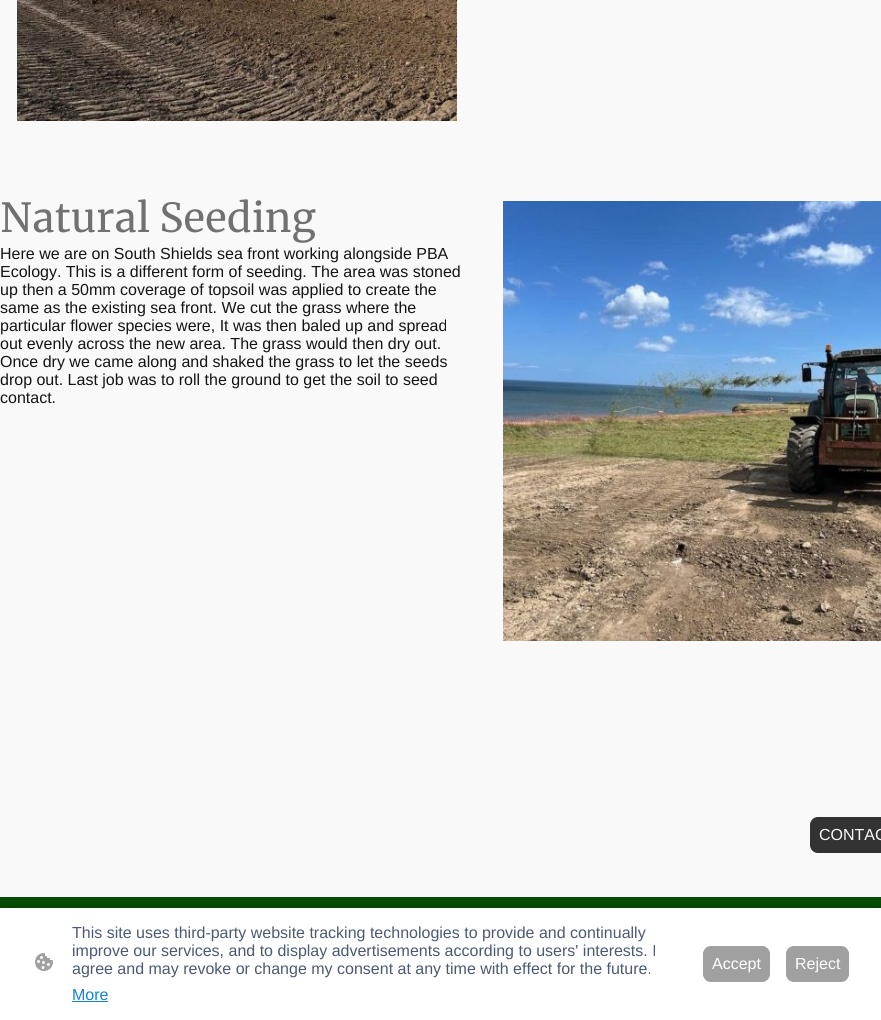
import math
import cairo


def round_path(ctx, x, y, w, h, r):
	ctx.new_sub_path()
	for i, (u, v) in enumerate([(x + w - r, y + h - r), (x + r, y + h - r), (x + r, y + r), (x + w - r, y + r)]):
		ctx.arc(u, v, r, i * math.pi / 2, (i + 1) * math.pi / 2)
	ctx.close_path()

def blur_box(ctx, x, y, w, h, r, blur, alpha):
	ctx.push_group_with_content(cairo.CONTENT_ALPHA)
	ctx.set_operator(cairo.OPERATOR_SOURCE)
	for i in range(15, -16, -2):
		e = blur * i / 6
		if min(w, h) + 2 * e > 0:
			ctx.set_source_rgba(0, 0, 0, alpha * math.erfc((i - 1) / 8.5) / 2)
			round_path(ctx, x - e, y - e, w + 2 * e, h + 2 * e, max(0, min(r + e + blur * .6, min(w, h) / 2 + e)))
			ctx.fill()
	ctx.mask(ctx.pop_group())

def paste(ctx, path, x, y, w, h):
	ctx.save()
	ctx.set_source_surface(cairo.ImageSurface.create_from_png(path), x, y)
	ctx.rectangle(x, y, w, h)
	ctx.fill()
	ctx.restore()

def draw(ctx):
	ctx.set_source_rgb(0.973, 0.973, 0.973)
	ctx.paint()
	paste(ctx, 'media/1.png', 17, 0, 440, 121)
	ctx.select_font_face('Merriweather')
	ctx.set_font_size(40)
	ctx.set_source_rgb(0.443, 0.443, 0.443)
	ctx.move_to(0, 232)
	ctx.show_text('Natural Seeding')
	paste(ctx, 'media/2.png', 503, 201, 378, 440)
	ctx.select_font_face('Liberation Sans')
	ctx.set_font_size(16)
	ctx.set_source_rgb(0.082, 0.082, 0.082)
	for x, y, s in [
		(0, 259, 'Here we are on South Shields sea front working alongside PBA'),
		(0, 277, 'Ecology. This is a different form of seeding. The area was stoned'),
		(0, 295, 'up then a 50mm coverage of topsoil was applied to create the'),
		(0, 313, 'same as the existing sea front. We cut the grass where the'),
		(0, 331, 'particular flower species were, It was then baled up and spread'),
		(0, 349, 'out evenly across the new area. The grass would then dry out.'),
		(0, 367, 'Once dry we came along and shaked the grass to let the seeds'),
		(0, 385, 'drop out. Last job was to roll the ground to get the soil to seed'),
		(0, 403, 'contact.'),
	]:
		ctx.move_to(x, y)
		ctx.show_text(s)
	ctx.set_source_rgb(0.2, 0.2, 0.2)
	round_path(ctx, 810.5, 817.5, 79, 35, 7.5)
	ctx.fill_preserve()
	ctx.set_line_width(1)
	ctx.stroke()
	ctx.set_source_rgb(0.973, 0.973, 0.973)
	ctx.move_to(819, 840)
	ctx.show_text('CONTAC')
	ctx.set_source_rgb(0.008, 0.302, 0.008)
	ctx.rectangle(0, 897, 881, 11)
	ctx.fill()
	ctx.set_source_rgb(0, 0, 0)
	blur_box(ctx, 6, 911, 869, 100, 0, 4, 0.63)
	ctx.set_source_rgb(1, 1, 1)
	ctx.rectangle(0, 908, 881, 112)
	ctx.fill()
	paste(ctx, 'media/3.png', 35, 953, 18, 18)
	ctx.set_source_rgb(0.29, 0.353, 0.451)
	for x, y, s in [
		(72, 938, 'This site uses third-party website tracking technologies to provide and continually'),
		(72, 956, 'improve our services, and to display advertisements according to users\' interests. I'),
		(72, 974, 'agree and may revoke or change my consent at any time with effect for the future.'),
	]:
		ctx.move_to(x, y)
		ctx.show_text(s)
	ctx.set_source_rgb(0.067, 0.514, 0.82)
	ctx.move_to(72, 1000)
	ctx.show_text('More')
	ctx.rectangle(72, 1001, 36, 1)
	ctx.fill()
	ctx.set_source_rgb(0.627, 0.627, 0.627)
	round_path(ctx, 703.5, 946.5, 66, 35, 7.5)
	ctx.fill_preserve()
	ctx.stroke()
	ctx.set_source_rgb(1, 1, 1)
	ctx.move_to(712, 969)
	ctx.show_text('Accept')
	ctx.set_source_rgb(0.627, 0.627, 0.627)
	round_path(ctx, 786.5, 946.5, 62, 35, 7.5)
	ctx.fill_preserve()
	ctx.stroke()
	ctx.set_source_rgb(1, 1, 1)
	ctx.move_to(795, 969)
	ctx.show_text('Reject')


surface = cairo.ImageSurface(cairo.FORMAT_RGB24, 881, 1020)
ctx = cairo.Context(surface)
options = cairo.FontOptions()
options.set_hint_metrics(cairo.HINT_METRICS_OFF)
options.set_hint_style(cairo.HINT_STYLE_NONE)
ctx.set_font_options(options)
ctx.set_miter_limit(4)
draw(ctx)
surface.write_to_png('image.png')
